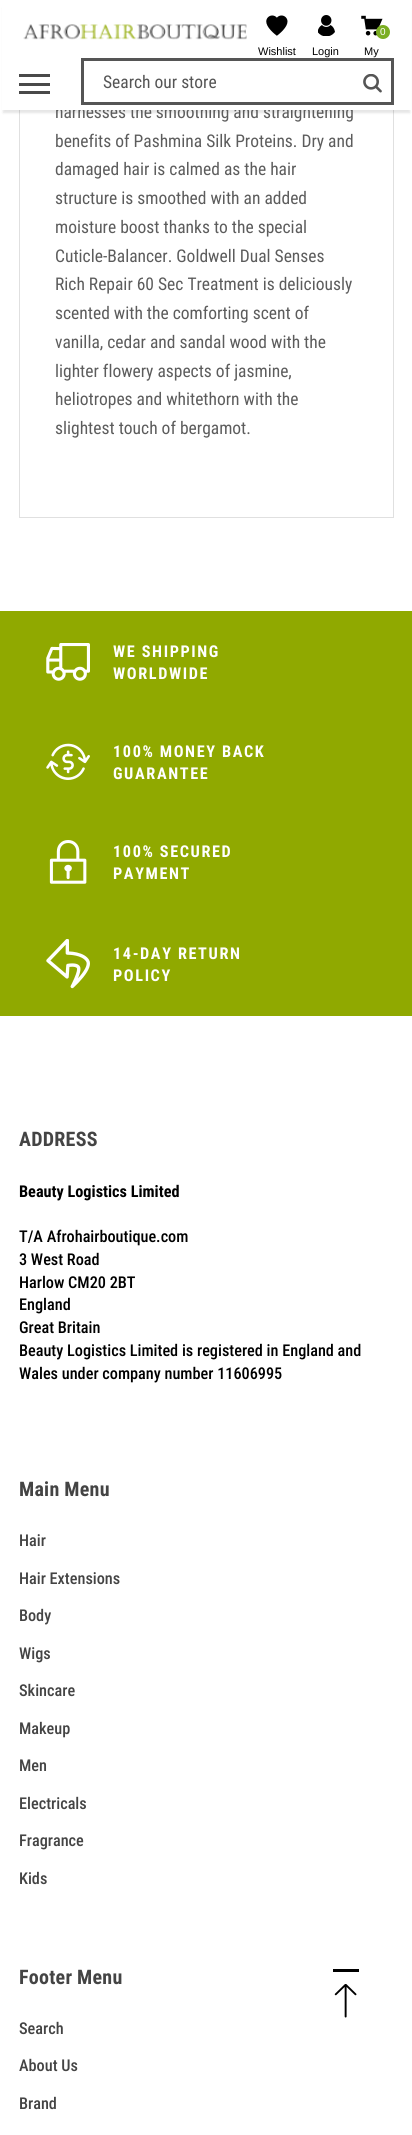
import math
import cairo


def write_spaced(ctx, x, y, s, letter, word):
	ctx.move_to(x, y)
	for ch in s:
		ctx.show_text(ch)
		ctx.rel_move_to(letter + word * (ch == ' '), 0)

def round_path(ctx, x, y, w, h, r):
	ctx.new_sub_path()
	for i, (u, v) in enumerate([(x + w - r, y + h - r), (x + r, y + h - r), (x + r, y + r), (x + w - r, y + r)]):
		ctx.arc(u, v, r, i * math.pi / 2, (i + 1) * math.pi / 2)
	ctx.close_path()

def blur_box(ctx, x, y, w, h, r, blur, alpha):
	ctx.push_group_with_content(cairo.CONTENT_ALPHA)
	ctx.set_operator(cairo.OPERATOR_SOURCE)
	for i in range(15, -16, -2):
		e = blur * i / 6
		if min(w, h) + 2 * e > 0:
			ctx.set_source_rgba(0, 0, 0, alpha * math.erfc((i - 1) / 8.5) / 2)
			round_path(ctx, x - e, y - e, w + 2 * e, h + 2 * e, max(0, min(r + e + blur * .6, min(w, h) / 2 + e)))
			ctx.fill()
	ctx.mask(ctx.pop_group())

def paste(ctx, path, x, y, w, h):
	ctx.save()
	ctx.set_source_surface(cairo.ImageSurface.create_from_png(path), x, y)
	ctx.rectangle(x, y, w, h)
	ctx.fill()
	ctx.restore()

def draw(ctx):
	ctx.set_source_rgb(1, 1, 1)
	ctx.paint()
	ctx.rectangle(19.5, -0.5, 374, 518)
	ctx.set_source_rgb(0.878, 0.878, 0.878)
	ctx.set_line_width(1)
	ctx.stroke()
	ctx.set_source_rgb(0, 0, 0)
	blur_box(ctx, 3, 8, 407, 105, 0, 1, 0.1)
	ctx.select_font_face('Roboto Condensed')
	ctx.set_font_size(17.5)
	ctx.set_source_rgb(0.361, 0.361, 0.361)
	ctx.move_to(55, 118)
	ctx.show_text('harnesses the smoothing and straightening')
	ctx.set_source_rgb(1, 1, 1)
	ctx.rectangle(2, 0, 409, 110)
	ctx.fill()
	paste(ctx, 'media/1.png', 23, 24, 224, 16)
	paste(ctx, 'media/2.png', 266, 15, 22, 21)
	ctx.select_font_face('Liberation Sans')
	ctx.set_font_size(11)
	ctx.set_source_rgb(0, 0, 0)
	ctx.move_to(258, 55)
	ctx.show_text('Wishlist')
	paste(ctx, 'media/3.png', 318, 15, 17, 21)
	ctx.move_to(312, 55)
	ctx.show_text('Login')
	paste(ctx, 'media/4.png', 361, 15, 22, 21)
	ctx.set_source_rgb(0.482, 0.682, 0.137)
	ctx.arc(383, 32, 7, 0, 2 * math.pi)
	ctx.fill()
	ctx.set_font_size(10)
	ctx.set_source_rgb(1, 1, 1)
	ctx.move_to(380, 35)
	ctx.show_text('0')
	ctx.set_font_size(11)
	ctx.set_source_rgb(0, 0, 0)
	ctx.move_to(364, 55)
	ctx.show_text('My')
	ctx.set_source_rgb(0.286, 0.286, 0.286)
	ctx.rectangle(19, 74, 31, 3)
	ctx.rectangle(19, 83, 31, 3)
	ctx.rectangle(19, 91, 31, 3)
	ctx.fill()
	ctx.rectangle(82.5, 59.5, 310, 44)
	ctx.set_source_rgb(0.333, 0.333, 0.333)
	ctx.set_line_width(3)
	ctx.stroke()
	ctx.select_font_face('Roboto Condensed')
	ctx.set_font_size(17.5)
	ctx.move_to(103, 88)
	ctx.show_text('Search our store')
	paste(ctx, 'media/5.png', 363, 74, 19, 19)
	ctx.set_source_rgb(0.361, 0.361, 0.361)
	for x, y, s in [
		(55, 147, 'benefits of Pashmina Silk Proteins. Dry and'),
		(55, 175, 'damaged hair is calmed as the hair'),
		(55, 204, 'structure is smoothed with an added'),
		(55, 233, 'moisture boost thanks to the special'),
		(55, 262, 'Cuticle-Balancer. Goldwell Dual Senses'),
		(55, 290, 'Rich Repair 60 Sec Treatment is deliciously'),
		(55, 319, 'scented with the comforting scent of'),
		(55, 348, 'vanilla, cedar and sandal wood with the'),
		(55, 377, 'lighter flowery aspects of jasmine,'),
		(55, 405, 'heliotropes and whitethorn with the'),
		(55, 434, 'slightest touch of bergamot.'),
	]:
		ctx.move_to(x, y)
		ctx.show_text(s)
	ctx.set_source_rgb(0.565, 0.663, 0)
	ctx.rectangle(0, 611, 412, 405)
	ctx.fill()
	paste(ctx, 'media/6.png', 46, 643, 44, 38)
	ctx.select_font_face('Roboto Condensed', cairo.FONT_SLANT_NORMAL, cairo.FONT_WEIGHT_BOLD)
	ctx.set_font_size(16.25)
	ctx.set_source_rgb(1, 1, 1)
	write_spaced(ctx, 113, 657, 'WE SHIPPING', 1.6, 0)
	write_spaced(ctx, 113, 679, 'WORLDWIDE', 1.6, 0)
	paste(ctx, 'media/7.png', 46, 743, 44, 37)
	write_spaced(ctx, 113, 757, '100% MONEY BACK', 1.6, 0)
	write_spaced(ctx, 113, 779, 'GUARANTEE', 1.6, 0)
	paste(ctx, 'media/8.png', 49, 840, 38, 44)
	write_spaced(ctx, 113, 857, '100% SECURED', 1.6, 0)
	write_spaced(ctx, 113, 879, 'PAYMENT', 1.6, 0)
	paste(ctx, 'media/9.png', 46, 939, 44, 50)
	write_spaced(ctx, 113, 959, '14-DAY RETURN', 1.6, 0)
	write_spaced(ctx, 113, 981, 'POLICY', 1.6, 0)
	ctx.set_font_size(20)
	ctx.set_source_rgb(0.267, 0.267, 0.267)
	write_spaced(ctx, 19, 1146, 'ADDRESS', 0.25, 0)
	ctx.set_font_size(16.25)
	ctx.set_source_rgb(0, 0, 0)
	ctx.move_to(19, 1197)
	ctx.show_text('Beauty Logistics Limited')
	ctx.select_font_face('Roboto Condensed Medium')
	for x, y, s in [
		(19, 1242, 'T/A Afrohairboutique.com'),
		(19, 1265, '3 West Road'),
		(19, 1288, 'Harlow CM20 2BT'),
		(19, 1310, 'England'),
		(19, 1333, 'Great Britain'),
		(19, 1356, 'Beauty Logistics Limited is registered in England and'),
		(19, 1379, 'Wales under company number 11606995'),
	]:
		ctx.move_to(x, y)
		ctx.show_text(s)
	ctx.select_font_face('Roboto Condensed', cairo.FONT_SLANT_NORMAL, cairo.FONT_WEIGHT_BOLD)
	ctx.set_font_size(20)
	ctx.set_source_rgb(0.267, 0.267, 0.267)
	write_spaced(ctx, 19, 1496, 'Main Menu', 0.25, 0)
	ctx.select_font_face('Roboto Condensed Medium')
	ctx.set_font_size(16.25)
	for x, y, s in [
		(19, 1546, 'Hair'),
		(19, 1584, 'Hair Extensions'),
		(19, 1621, 'Body'),
		(19, 1659, 'Wigs'),
		(19, 1696, 'Skincare'),
		(19, 1734, 'Makeup'),
		(19, 1771, 'Men'),
		(19, 1809, 'Electricals'),
		(19, 1846, 'Fragrance'),
		(19, 1884, 'Kids'),
	]:
		ctx.move_to(x, y)
		ctx.show_text(s)
	ctx.select_font_face('Roboto Condensed', cairo.FONT_SLANT_NORMAL, cairo.FONT_WEIGHT_BOLD)
	ctx.set_font_size(20)
	write_spaced(ctx, 19, 1984, 'Footer Menu', 0.25, 0)
	ctx.select_font_face('Roboto Condensed Medium')
	ctx.set_font_size(16.25)
	for x, y, s in [
		(19, 2034, 'Search'),
		(19, 2071, 'About Us'),
		(19, 2109, 'Brand'),
	]:
		ctx.move_to(x, y)
		ctx.show_text(s)
	ctx.set_source_rgb(0, 0, 0)
	ctx.rectangle(333, 1969, 26, 3)
	ctx.fill()
	paste(ctx, 'media/10.png', 334, 1984, 23, 34)


surface = cairo.ImageSurface(cairo.FORMAT_RGB24, 412, 2135)
ctx = cairo.Context(surface)
options = cairo.FontOptions()
options.set_hint_metrics(cairo.HINT_METRICS_OFF)
options.set_hint_style(cairo.HINT_STYLE_NONE)
ctx.set_font_options(options)
ctx.set_miter_limit(4)
draw(ctx)
surface.write_to_png('image.png')
